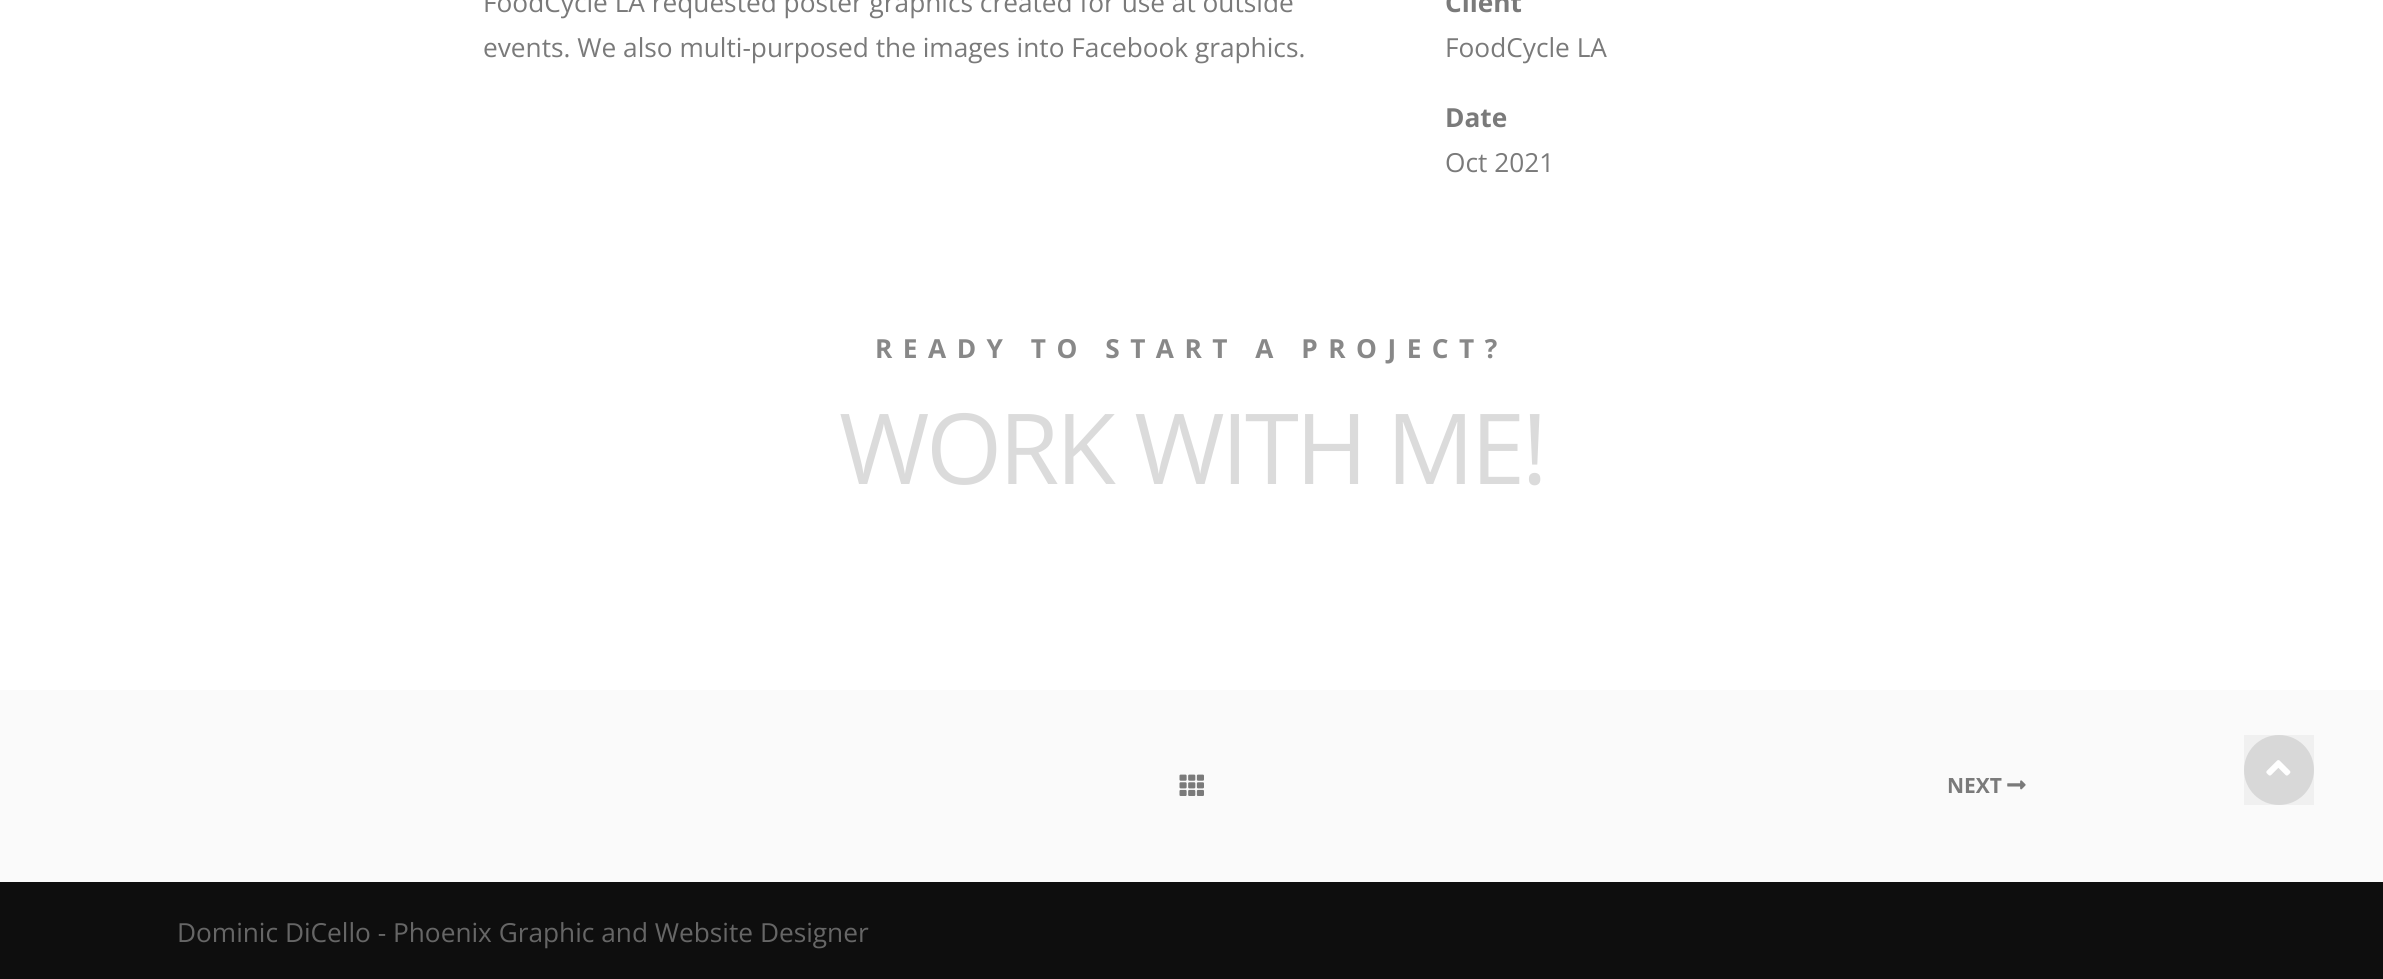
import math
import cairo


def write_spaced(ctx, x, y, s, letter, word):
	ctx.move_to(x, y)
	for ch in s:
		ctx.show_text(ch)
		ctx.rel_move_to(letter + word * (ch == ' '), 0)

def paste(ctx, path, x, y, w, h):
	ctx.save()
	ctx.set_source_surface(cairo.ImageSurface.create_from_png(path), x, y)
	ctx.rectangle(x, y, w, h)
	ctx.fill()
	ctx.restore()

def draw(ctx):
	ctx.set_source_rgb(1, 1, 1)
	ctx.paint()
	ctx.select_font_face('Open Sans')
	ctx.set_font_size(26.25)
	ctx.set_source_rgb(0.478, 0.478, 0.478)
	ctx.move_to(483, 12)
	ctx.show_text('FoodCycle LA requested poster graphics created for use at outside')
	ctx.move_to(483, 57)
	ctx.show_text('events. We also multi-purposed the images into Facebook graphics.')
	ctx.select_font_face('Open Sans', cairo.FONT_SLANT_NORMAL, cairo.FONT_WEIGHT_BOLD)
	ctx.move_to(1445, 12)
	ctx.show_text('Client')
	ctx.select_font_face('Open Sans')
	ctx.move_to(1445, 57)
	ctx.show_text('FoodCycle LA')
	ctx.select_font_face('Open Sans', cairo.FONT_SLANT_NORMAL, cairo.FONT_WEIGHT_BOLD)
	ctx.move_to(1445, 127)
	ctx.show_text('Date')
	ctx.select_font_face('Open Sans')
	ctx.move_to(1445, 172)
	ctx.show_text('Oct 2021')
	ctx.select_font_face('Open Sans', cairo.FONT_SLANT_NORMAL, cairo.FONT_WEIGHT_BOLD)
	ctx.set_source_rgb(0.533, 0.533, 0.533)
	write_spaced(ctx, 875, 358, 'READY TO START A PROJECT?', 10.5, 0)
	ctx.select_font_face('Open Sans')
	ctx.set_font_size(98)
	ctx.set_source_rgb(0.859, 0.859, 0.859)
	write_spaced(ctx, 839, 484, 'WORK WITH ME!', -3.5, 0)
	ctx.set_source_rgb(0.98, 0.98, 0.98)
	ctx.rectangle(0, 690, 2383, 192)
	ctx.fill()
	paste(ctx, 'media/1.png', 1179, 774, 25, 22)
	ctx.select_font_face('Open Sans', cairo.FONT_SLANT_NORMAL, cairo.FONT_WEIGHT_BOLD)
	ctx.set_font_size(21)
	ctx.set_source_rgb(0.478, 0.478, 0.478)
	ctx.move_to(1947, 793)
	ctx.show_text('NEXT')
	paste(ctx, 'media/2.png', 2007, 780, 19, 10)
	ctx.set_source_rgb(0.882, 0.882, 0.882)
	ctx.arc(2279, 770, 35, 0, 2 * math.pi)
	ctx.fill()
	ctx.set_source_rgba(0, 0, 0, 0.04)
	ctx.rectangle(2244, 735, 70, 70)
	ctx.fill()
	paste(ctx, 'media/3.png', 2266, 760, 25, 16)
	ctx.set_source_rgb(0.055, 0.055, 0.055)
	ctx.rectangle(0, 882, 2383, 97)
	ctx.fill()
	ctx.select_font_face('Open Sans')
	ctx.set_font_size(26.25)
	ctx.set_source_rgb(0.4, 0.4, 0.4)
	ctx.move_to(177, 942)
	ctx.show_text('Dominic DiCello - Phoenix Graphic and Website Designer')


surface = cairo.ImageSurface(cairo.FORMAT_RGB24, 2383, 979)
ctx = cairo.Context(surface)
options = cairo.FontOptions()
options.set_hint_metrics(cairo.HINT_METRICS_OFF)
options.set_hint_style(cairo.HINT_STYLE_NONE)
ctx.set_font_options(options)
ctx.set_miter_limit(4)
draw(ctx)
surface.write_to_png('image.png')
